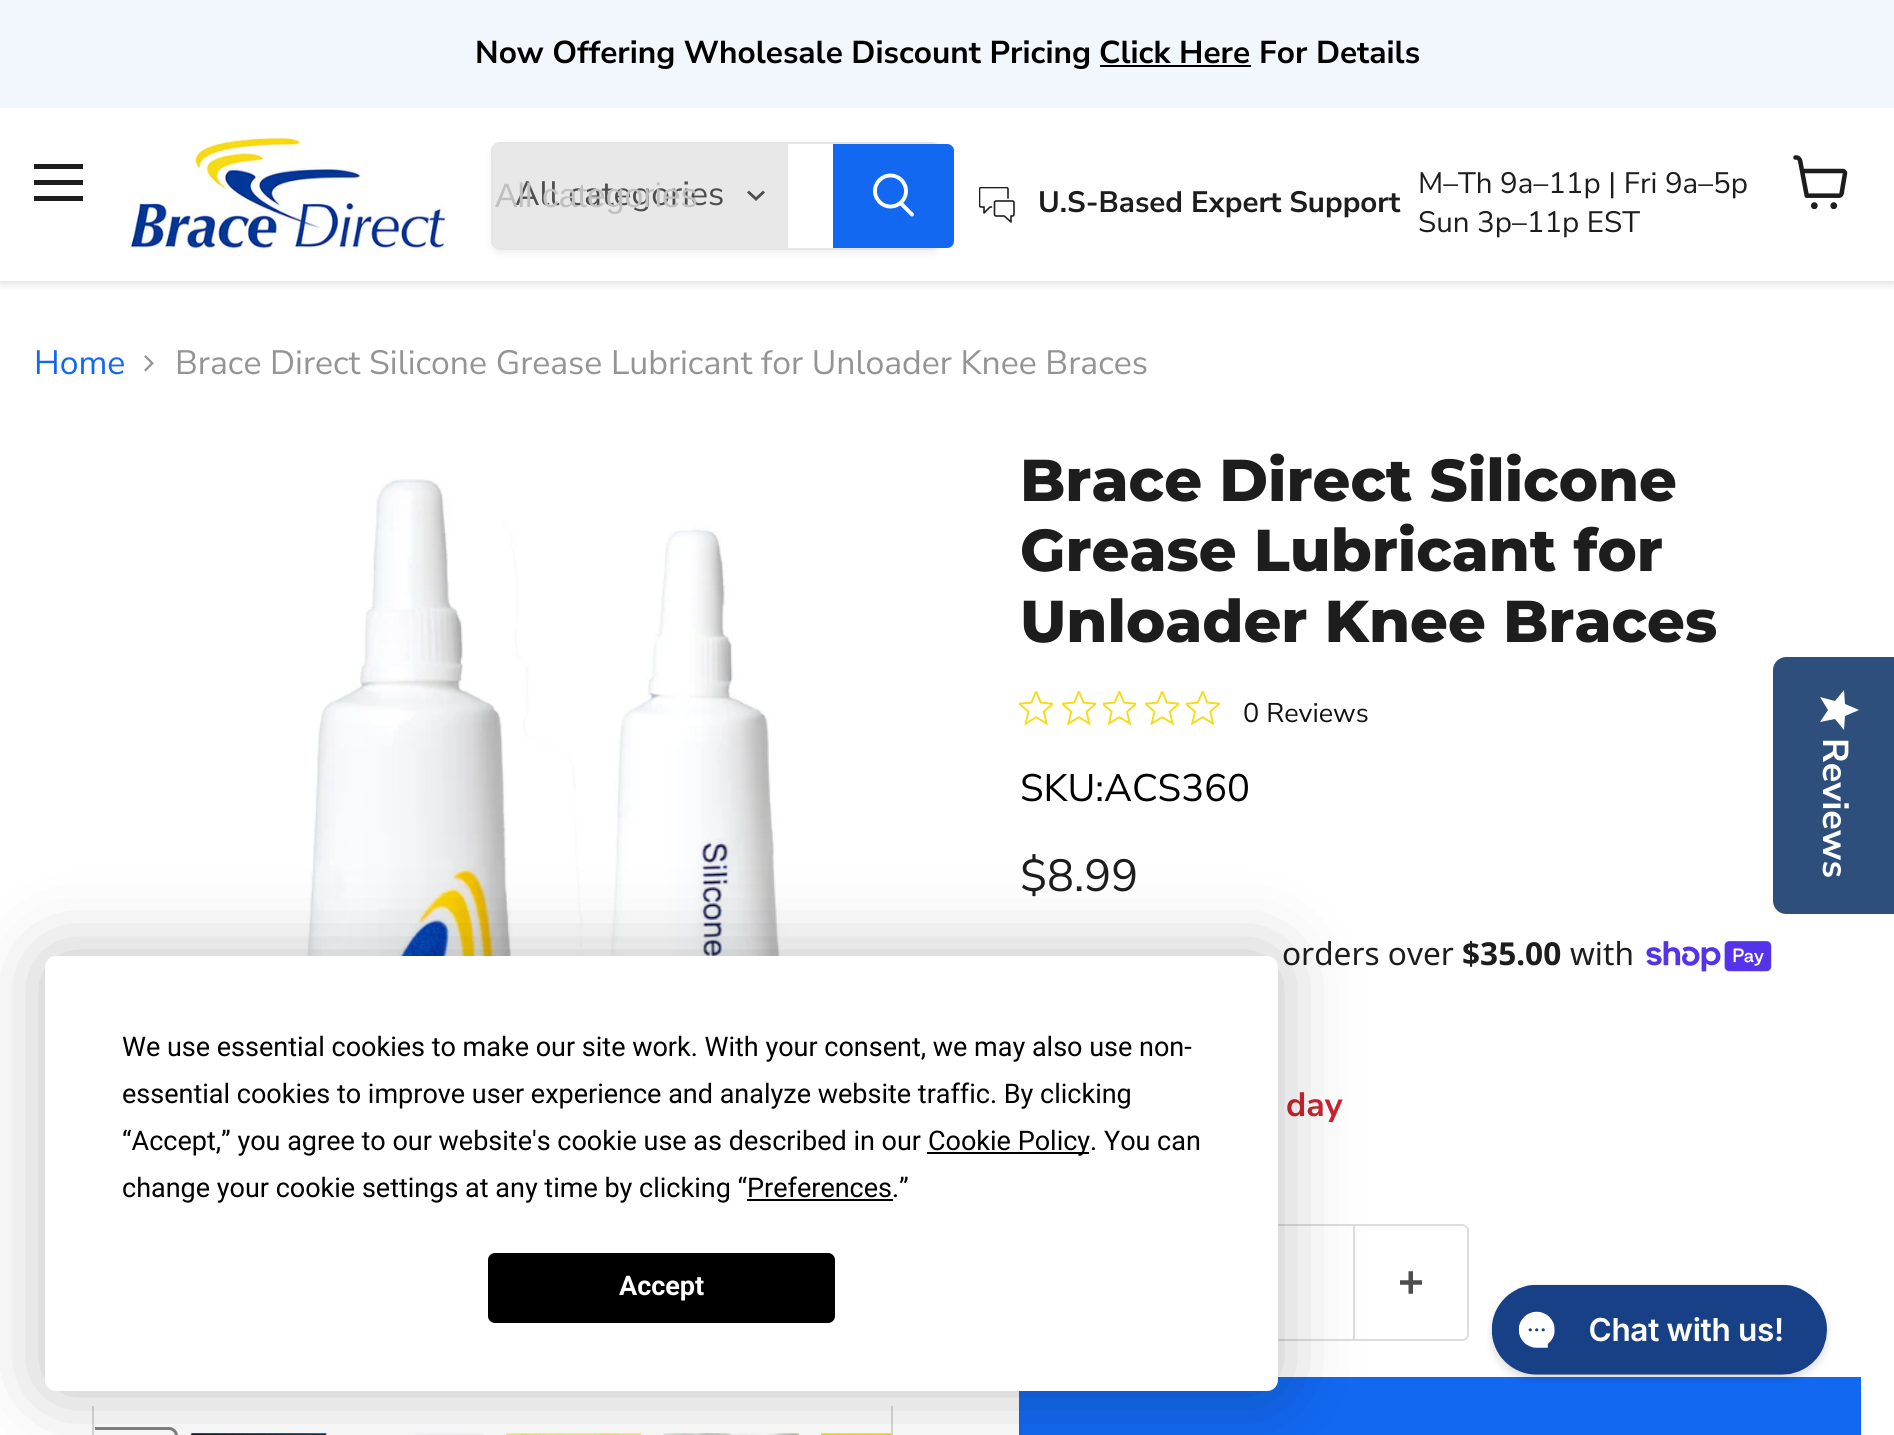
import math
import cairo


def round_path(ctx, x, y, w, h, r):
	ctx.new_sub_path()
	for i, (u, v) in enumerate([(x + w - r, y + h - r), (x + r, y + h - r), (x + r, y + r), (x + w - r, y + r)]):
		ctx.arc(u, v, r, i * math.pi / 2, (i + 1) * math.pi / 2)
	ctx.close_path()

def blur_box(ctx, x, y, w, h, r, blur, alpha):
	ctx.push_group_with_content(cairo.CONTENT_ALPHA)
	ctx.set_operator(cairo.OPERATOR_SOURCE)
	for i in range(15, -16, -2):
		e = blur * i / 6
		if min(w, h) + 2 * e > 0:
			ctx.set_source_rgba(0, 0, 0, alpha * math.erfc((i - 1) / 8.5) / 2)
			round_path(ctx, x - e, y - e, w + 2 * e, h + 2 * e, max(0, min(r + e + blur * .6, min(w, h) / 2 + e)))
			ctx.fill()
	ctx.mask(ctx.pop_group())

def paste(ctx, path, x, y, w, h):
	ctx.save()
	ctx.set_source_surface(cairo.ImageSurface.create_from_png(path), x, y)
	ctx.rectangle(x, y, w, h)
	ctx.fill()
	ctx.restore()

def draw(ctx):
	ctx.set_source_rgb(1, 1, 1)
	ctx.paint()
	ctx.save()
	ctx.rectangle(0, 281, 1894, 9)
	ctx.clip()
	ctx.set_source_rgb(0.502, 0.502, 0.502)
	blur_box(ctx, 0, 110, 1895, 174, 0, 4.5, 0.25)
	ctx.restore()
	ctx.set_source_rgb(0.949, 0.965, 0.996)
	ctx.rectangle(0, 0, 1894, 108)
	ctx.fill()
	ctx.select_font_face('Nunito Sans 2 ExtraLight')
	ctx.set_font_size(31.6)
	ctx.set_source_rgb(0, 0, 0)
	ctx.move_to(475, 63)
	ctx.show_text('Now Offering Wholesale Discount Pricing')
	ctx.move_to(1099, 63)
	ctx.show_text('Click Here')
	ctx.rectangle(1100, 65, 151, 2)
	ctx.fill()
	ctx.move_to(1259, 63)
	ctx.show_text('For Details')
	ctx.set_source_rgb(0.114, 0.114, 0.114)
	ctx.rectangle(34, 164, 49, 5)
	ctx.rectangle(34, 180, 49, 5)
	ctx.rectangle(34, 196, 49, 5)
	ctx.fill()
	paste(ctx, 'media/1.png', 130, 136, 317, 116)
	ctx.save()
	ctx.set_fill_rule(cairo.FILL_RULE_EVEN_ODD)
	ctx.new_path()
	ctx.move_to(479, 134)
	ctx.line_to(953, 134)
	ctx.line_to(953, 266)
	ctx.line_to(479, 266)
	ctx.close_path()
	ctx.move_to(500, 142)
	ctx.line_to(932, 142)
	ctx.curve_to(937, 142, 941, 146, 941, 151)
	ctx.line_to(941, 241)
	ctx.curve_to(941, 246, 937, 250, 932, 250)
	ctx.line_to(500, 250)
	ctx.curve_to(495, 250, 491, 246, 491, 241)
	ctx.line_to(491, 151)
	ctx.curve_to(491, 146, 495, 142, 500, 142)
	ctx.close_path()
	ctx.clip()
	ctx.set_source_rgb(0.502, 0.502, 0.502)
	blur_box(ctx, 491, 146, 450, 108, 9, 3.5, 0.11)
	ctx.restore()
	round_path(ctx, 492, 143, 448, 106, 8)
	ctx.set_source_rgba(0.502, 0.502, 0.502, 0.2)
	ctx.stroke()
	ctx.set_source_rgb(0.91, 0.91, 0.91)
	ctx.new_path()
	ctx.move_to(500, 144)
	ctx.line_to(788, 144)
	ctx.line_to(788, 248)
	ctx.line_to(500, 248)
	ctx.curve_to(496, 248, 493, 245, 493, 241)
	ctx.line_to(493, 151)
	ctx.curve_to(493, 147, 496, 144, 500, 144)
	ctx.close_path()
	ctx.fill()
	ctx.select_font_face('Nunito Sans ExtraLight')
	ctx.set_font_size(33.75)
	ctx.set_source_rgb(0.302, 0.302, 0.302)
	ctx.move_to(515, 205)
	ctx.show_text('All categories')
	ctx.select_font_face('Liberation Sans')
	ctx.set_source_rgb(0.753, 0.753, 0.753)
	ctx.move_to(495, 207)
	ctx.show_text('All categories')
	ctx.new_path()
	ctx.move_to(756, 199)
	ctx.line_to(763, 192.5)
	ctx.move_to(756, 199)
	ctx.line_to(749, 192.5)
	ctx.set_source_rgb(0.302, 0.302, 0.302)
	ctx.set_line_width(2.8)
	ctx.set_line_cap(cairo.LINE_CAP_SQUARE)
	ctx.stroke()
	ctx.set_source_rgb(0.071, 0.408, 0.945)
	ctx.new_path()
	ctx.move_to(834, 145)
	ctx.line_to(947, 145)
	ctx.curve_to(950.5, 145, 953, 147.5, 953, 151)
	ctx.line_to(953, 241)
	ctx.curve_to(953, 244.5, 950.5, 247, 947, 247)
	ctx.line_to(834, 247)
	ctx.close_path()
	ctx.fill_preserve()
	ctx.set_line_width(2)
	ctx.set_line_cap(cairo.LINE_CAP_BUTT)
	ctx.stroke()
	ctx.new_path()
	ctx.move_to(912, 214.5)
	ctx.line_to(901, 203.5)
	ctx.set_source_rgb(1, 1, 1)
	ctx.set_line_width(3.9)
	ctx.set_line_cap(cairo.LINE_CAP_ROUND)
	ctx.stroke()
	ctx.arc(890.5, 191, 15.5, 0, 2 * math.pi)
	ctx.set_line_cap(cairo.LINE_CAP_BUTT)
	ctx.stroke()
	paste(ctx, 'media/2.png', 979, 187, 36, 36)
	ctx.select_font_face('Nunito Sans 2 ExtraLight')
	ctx.set_font_size(29.5)
	ctx.set_source_rgb(0.114, 0.114, 0.114)
	ctx.move_to(1038, 212)
	ctx.show_text('U.S-Based Expert Support')
	ctx.select_font_face('Nunito Sans ExtraLight')
	ctx.move_to(1418, 193)
	ctx.show_text('M–Th 9a–11p | Fri 9a–5p')
	ctx.move_to(1418, 232)
	ctx.show_text('Sun 3p–11p EST')
	paste(ctx, 'media/3.png', 1793, 155, 55, 54)
	ctx.set_font_size(33.75)
	ctx.set_source_rgb(0.071, 0.408, 0.945)
	ctx.move_to(34, 374)
	ctx.show_text('Home')
	paste(ctx, 'media/4.png', 144, 355, 10, 17)
	ctx.set_source_rgb(0.58, 0.58, 0.58)
	ctx.move_to(175, 374)
	ctx.show_text('Brace Direct Silicone Grease Lubricant for Unloader Knee Braces')
	paste(ctx, 'media/5.png', 263, 478, 550, 478)
	round_path(ctx, 28.5, 1428.5, 148, 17, 7.5)
	ctx.set_source_rgb(0.506, 0.506, 0.506)
	ctx.set_line_width(3)
	ctx.stroke()
	ctx.set_source_rgb(1, 1, 1)
	ctx.rectangle(27, 1427, 68, 8)
	ctx.fill()
	ctx.set_source_rgb(0.851, 0.851, 0.851)
	ctx.rectangle(92, 1406, 2, 29)
	ctx.rectangle(891, 1406, 2, 29)
	ctx.fill()
	paste(ctx, 'media/6.png', 191, 1433, 136, 2)
	paste(ctx, 'media/7.png', 413, 1433, 71, 2)
	paste(ctx, 'media/8.png', 506, 1433, 136, 2)
	paste(ctx, 'media/9.png', 663, 1433, 136, 2)
	paste(ctx, 'media/10.png', 821, 1433, 70, 2)
	ctx.select_font_face('Montserrat ExtraBold')
	ctx.set_font_size(59)
	ctx.set_source_rgb(0.114, 0.114, 0.114)
	for x, y, s in [
		(1020, 501, 'Brace Direct Silicone'),
		(1020, 571, 'Grease Lubricant for'),
		(1020, 642, 'Unloader Knee Braces'),
	]:
		ctx.move_to(x, y)
		ctx.show_text(s)
	paste(ctx, 'media/11.png', 1019, 691, 34, 34)
	paste(ctx, 'media/12.png', 1062, 691, 34, 34)
	paste(ctx, 'media/13.png', 1103, 691, 33, 34)
	paste(ctx, 'media/11.png', 1145, 691, 34, 34)
	paste(ctx, 'media/14.png', 1186, 691, 34, 34)
	ctx.select_font_face('Nunito Sans ExtraLight')
	ctx.set_font_size(27)
	ctx.set_source_rgb(0.071, 0.071, 0.067)
	ctx.move_to(1243, 722)
	ctx.show_text('0 Reviews')
	ctx.set_font_size(38.25)
	ctx.set_source_rgb(0, 0, 0)
	ctx.move_to(1020, 801)
	ctx.show_text('SKU:ACS360')
	ctx.set_font_size(45)
	ctx.set_source_rgb(0.114, 0.114, 0.114)
	ctx.move_to(1020, 891)
	ctx.show_text('$8.99')
	ctx.select_font_face('Noto Sans')
	ctx.set_font_size(31.6)
	ctx.move_to(1282, 965)
	ctx.show_text('orders over')
	ctx.select_font_face('Noto Sans', cairo.FONT_SLANT_NORMAL, cairo.FONT_WEIGHT_BOLD)
	ctx.move_to(1462, 965)
	ctx.show_text('$35.00')
	ctx.select_font_face('Noto Sans')
	ctx.move_to(1570, 965)
	ctx.show_text('with')
	paste(ctx, 'media/15.png', 1646, 941, 126, 31)
	ctx.select_font_face('Nunito Sans 2 ExtraLight')
	ctx.set_font_size(33.75)
	ctx.set_source_rgb(0.784, 0.145, 0.18)
	ctx.move_to(1286, 1116)
	ctx.show_text('day')
	ctx.rectangle(1135, 1225, 219, 115)
	ctx.set_source_rgb(0.867, 0.867, 0.867)
	ctx.set_line_width(2)
	ctx.stroke()
	ctx.set_fill_rule(cairo.FILL_RULE_EVEN_ODD)
	ctx.new_path()
	ctx.move_to(1354, 1224)
	ctx.line_to(1462, 1224)
	ctx.curve_to(1466, 1224, 1469, 1227, 1469, 1231)
	ctx.line_to(1469, 1334)
	ctx.curve_to(1469, 1338, 1466, 1341, 1462, 1341)
	ctx.line_to(1354, 1341)
	ctx.close_path()
	ctx.move_to(1354, 1226)
	ctx.line_to(1462, 1226)
	ctx.curve_to(1465, 1226, 1467, 1228, 1467, 1231)
	ctx.line_to(1467, 1334)
	ctx.curve_to(1467, 1337, 1465, 1339, 1462, 1339)
	ctx.line_to(1354, 1339)
	ctx.close_path()
	ctx.fill()
	paste(ctx, 'media/16.png', 1400, 1271, 22, 23)
	ctx.set_source_rgb(0.071, 0.408, 0.945)
	ctx.rectangle(1019, 1377, 842, 58)
	ctx.fill()
	ctx.set_source_rgb(0.18, 0.31, 0.486)
	ctx.set_fill_rule(cairo.FILL_RULE_WINDING)
	ctx.new_path()
	ctx.move_to(1894, 657)
	ctx.line_to(1894, 914)
	ctx.line_to(1786, 914)
	ctx.curve_to(1779, 914, 1773, 908, 1773, 901)
	ctx.line_to(1773, 670)
	ctx.curve_to(1773, 663, 1779, 657, 1786, 657)
	ctx.close_path()
	ctx.fill()
	gradient = cairo.LinearGradient(1859, 690, 1859, 730)
	gradient.add_color_stop_rgba(1, 1, 1, 1, 1)
	gradient.add_color_stop_rgba(1, 0.918, 0.918, 0.918, 1)
	ctx.set_source(gradient)
	ctx.new_path()
	ctx.move_to(1828, 710)
	ctx.line_to(1820, 722)
	ctx.line_to(1835, 719)
	ctx.line_to(1844, 730)
	ctx.line_to(1845, 716)
	ctx.line_to(1859, 710)
	ctx.line_to(1845, 704)
	ctx.line_to(1844, 690)
	ctx.line_to(1835, 701)
	ctx.line_to(1820, 697)
	ctx.close_path()
	ctx.fill()
	ctx.set_font_size(36)
	ctx.set_source_rgb(1, 1, 1)
	ctx.save()
	ctx.translate(1823, 738)
	ctx.rotate(90 * math.pi / 180)
	ctx.move_to(0, 0)
	ctx.show_text('Reviews')
	ctx.restore()
	ctx.set_source_rgb(0, 0, 0)
	blur_box(ctx, 45, 956, 1233, 435, 11, 39.5, 0.25)
	ctx.set_source_rgb(1, 1, 1)
	round_path(ctx, 45, 956, 1233, 435, 11)
	ctx.fill()
	ctx.select_font_face('Roboto')
	ctx.set_font_size(27)
	ctx.set_source_rgb(0, 0, 0)
	for x, y, s in [
		(122, 1056, 'We use essential cookies to make our site work. With your consent, we may also use non-'),
		(122, 1103, 'essential cookies to improve user experience and analyze website traffic. By clicking'),
		(122, 1150, '“Accept,” you agree to our website\'s cookie use as described in our'),
	]:
		ctx.move_to(x, y)
		ctx.show_text(s)
	ctx.rectangle(927, 1152, 162, 2)
	ctx.fill()
	ctx.move_to(928, 1150)
	ctx.show_text('Cookie Policy. You can')
	ctx.move_to(122, 1197)
	ctx.show_text('change your cookie settings at any time by clicking “Preferences.”')
	ctx.rectangle(747, 1199, 146, 2)
	ctx.fill()
	round_path(ctx, 489, 1254, 345, 68, 6)
	ctx.fill_preserve()
	ctx.stroke()
	ctx.select_font_face('Roboto', cairo.FONT_SLANT_NORMAL, cairo.FONT_WEIGHT_BOLD)
	ctx.set_source_rgb(1, 1, 1)
	ctx.move_to(619, 1295)
	ctx.show_text('Accept')
	paste(ctx, 'media/17.png', 1487, 1284, 344, 100)


surface = cairo.ImageSurface(cairo.FORMAT_RGB24, 1894, 1435)
ctx = cairo.Context(surface)
options = cairo.FontOptions()
options.set_hint_metrics(cairo.HINT_METRICS_OFF)
options.set_hint_style(cairo.HINT_STYLE_NONE)
ctx.set_font_options(options)
ctx.set_miter_limit(4)
draw(ctx)
surface.write_to_png('image.png')
